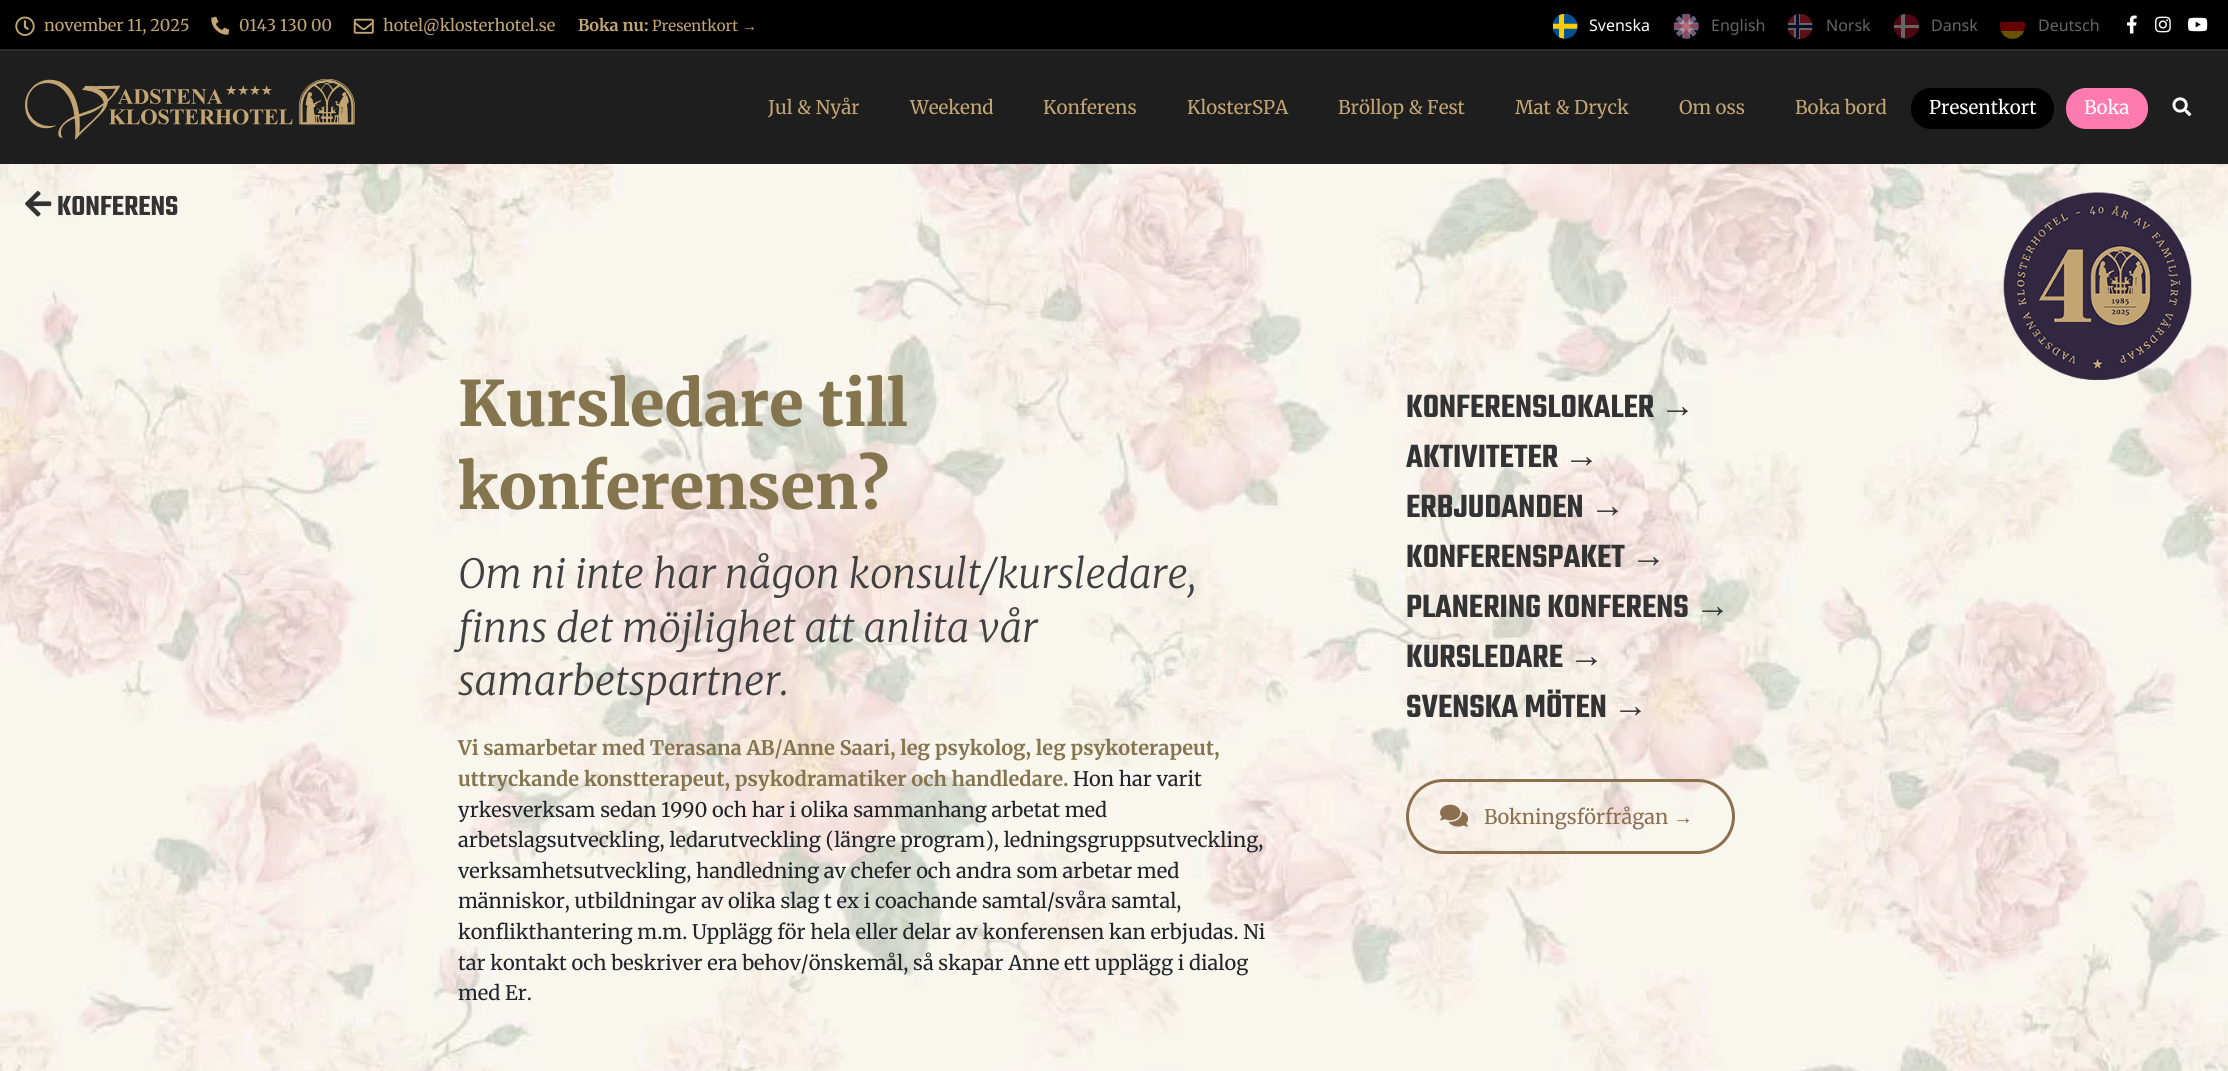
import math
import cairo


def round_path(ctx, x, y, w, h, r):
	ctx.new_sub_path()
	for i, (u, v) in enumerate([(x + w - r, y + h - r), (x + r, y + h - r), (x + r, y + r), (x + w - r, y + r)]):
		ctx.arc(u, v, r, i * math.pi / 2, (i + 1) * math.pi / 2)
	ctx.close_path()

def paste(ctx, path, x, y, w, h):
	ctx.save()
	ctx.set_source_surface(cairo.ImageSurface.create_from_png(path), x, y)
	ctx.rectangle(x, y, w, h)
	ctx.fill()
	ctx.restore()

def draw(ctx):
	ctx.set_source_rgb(0, 0, 0)
	ctx.paint()
	ctx.set_source_rgb(0.169, 0.169, 0.169)
	ctx.rectangle(0, 49, 2228, 2)
	ctx.fill()
	paste(ctx, 'media/1.png', 15, 16, 20, 20)
	ctx.select_font_face('Merriweather')
	ctx.set_font_size(16.25)
	ctx.set_source_rgb(0.761, 0.647, 0.447)
	ctx.move_to(44, 31)
	ctx.show_text('november 11, 2025')
	paste(ctx, 'media/2.png', 211, 16, 19, 19)
	ctx.move_to(239, 31)
	ctx.show_text('0143 130 00')
	paste(ctx, 'media/3.png', 353, 18, 21, 16)
	ctx.move_to(383, 31)
	ctx.show_text('hotel@klosterhotel.se')
	ctx.select_font_face('Merriweather', cairo.FONT_SLANT_NORMAL, cairo.FONT_WEIGHT_BOLD)
	ctx.move_to(578, 31)
	ctx.show_text('Boka nu:')
	ctx.select_font_face('Merriweather')
	ctx.set_font_size(15)
	ctx.move_to(652, 31)
	ctx.show_text('Presentkort')
	ctx.select_font_face('Liberation Serif')
	ctx.move_to(742, 31)
	ctx.show_text('→')
	paste(ctx, 'media/4.png', 1553, 13, 25, 26)
	ctx.select_font_face('Noto Sans')
	ctx.set_font_size(16)
	ctx.set_source_rgb(1, 1, 1)
	ctx.move_to(1589, 31)
	ctx.show_text('Svenska')
	paste(ctx, 'media/5.png', 1674, 13, 25, 26)
	ctx.set_source_rgb(0.4, 0.4, 0.4)
	ctx.move_to(1711, 31)
	ctx.show_text('English')
	ctx.set_source_rgb(0.373, 0.063, 0.09)
	ctx.new_path()
	ctx.move_to(1788, 22.5)
	ctx.curve_to(1789.5, 18.5, 1793, 15, 1797.5, 14)
	ctx.line_to(1802.5, 14)
	ctx.curve_to(1808, 15, 1812.5, 20, 1812.5, 26)
	ctx.curve_to(1812.5, 33, 1807, 39, 1800, 39)
	ctx.curve_to(1794.5, 39, 1789.5, 35, 1788, 30)
	ctx.close_path()
	ctx.fill()
	ctx.set_source_rgb(0.4, 0.4, 0.4)
	ctx.new_path()
	ctx.move_to(1797.5, 14)
	ctx.line_to(1800, 14)
	ctx.line_to(1800, 39)
	ctx.curve_to(1798, 39, 1796, 38, 1794, 37)
	ctx.line_to(1794, 15.5)
	ctx.close_path()
	ctx.fill()
	ctx.new_path()
	ctx.move_to(1788, 23)
	ctx.line_to(1812, 23)
	ctx.curve_to(1812.5, 25.5, 1812.5, 27.5, 1812, 30)
	ctx.line_to(1788, 30)
	ctx.close_path()
	ctx.fill()
	ctx.set_source_rgb(0, 0.059, 0.157)
	ctx.new_path()
	ctx.move_to(1797.5, 14)
	ctx.line_to(1799, 14)
	ctx.line_to(1799, 38.5)
	ctx.line_to(1796, 38)
	ctx.line_to(1796, 14.5)
	ctx.close_path()
	ctx.fill()
	ctx.set_source_rgb(0.4, 0.4, 0.4)
	ctx.move_to(1826, 31)
	ctx.show_text('Norsk')
	ctx.set_source_rgb(0, 0.059, 0.157)
	ctx.rectangle(1788, 25, 25, 3)
	ctx.fill()
	ctx.set_source_rgb(0.314, 0.024, 0.071)
	ctx.new_path()
	ctx.move_to(1894, 24)
	ctx.curve_to(1897, 9.5, 1919, 11.5, 1919, 26)
	ctx.curve_to(1918.5, 41, 1897, 43.5, 1894, 28.5)
	ctx.close_path()
	ctx.fill()
	ctx.set_source_rgb(0.4, 0.4, 0.4)
	ctx.new_path()
	ctx.move_to(1904, 14)
	ctx.line_to(1905, 14)
	ctx.line_to(1905, 38.5)
	ctx.line_to(1901, 37.5)
	ctx.line_to(1901, 15)
	ctx.close_path()
	ctx.fill()
	ctx.move_to(1931, 31)
	ctx.show_text('Dansk')
	ctx.rectangle(1894, 25, 25, 3)
	ctx.fill()
	ctx.set_source_rgb(0.4, 0, 0)
	ctx.new_path()
	ctx.move_to(2001, 31)
	ctx.curve_to(2000, 28, 1999.5, 25, 2000.5, 22)
	ctx.line_to(2024.5, 22)
	ctx.curve_to(2025.5, 25, 2025, 28, 2024, 31)
	ctx.close_path()
	ctx.fill()
	ctx.set_source_rgb(0.4, 0.4, 0.4)
	ctx.move_to(2038, 31)
	ctx.show_text('Deutsch')
	ctx.set_source_rgb(0.4, 0.322, 0)
	ctx.new_path()
	ctx.move_to(2024, 31)
	ctx.curve_to(2020, 41.5, 2005, 41.5, 2001, 31)
	ctx.close_path()
	ctx.fill()
	paste(ctx, 'media/6.png', 2127, 15, 10, 19)
	paste(ctx, 'media/7.png', 2155, 16, 16, 17)
	paste(ctx, 'media/8.png', 2188, 17, 20, 15)
	ctx.set_source_rgb(0.118, 0.118, 0.118)
	ctx.rectangle(0, 51, 2228, 113)
	ctx.fill()
	paste(ctx, 'media/9.png', 25, 79, 330, 61)
	ctx.select_font_face('Merriweather')
	ctx.set_font_size(18.75)
	ctx.set_source_rgb(0.761, 0.647, 0.447)
	for x, y, s in [
		(768, 114, 'Jul & Nyår'),
		(910, 114, 'Weekend'),
		(1043, 114, 'Konferens'),
		(1187, 114, 'KlosterSPA'),
		(1338, 114, 'Bröllop & Fest'),
		(1515, 114, 'Mat & Dryck'),
		(1679, 114, 'Om oss'),
		(1795, 114, 'Boka bord'),
	]:
		ctx.move_to(x, y)
		ctx.show_text(s)
	ctx.set_source_rgb(0, 0, 0)
	round_path(ctx, 1911, 88, 143, 41, 20)
	ctx.fill()
	ctx.set_source_rgb(1, 1, 1)
	ctx.move_to(1929, 114)
	ctx.show_text('Presentkort')
	ctx.set_source_rgb(1, 0.478, 0.682)
	round_path(ctx, 2066, 88, 82, 41, 20)
	ctx.fill()
	ctx.set_source_rgb(1, 1, 1)
	ctx.move_to(2084, 114)
	ctx.show_text('Boka')
	paste(ctx, 'media/10.png', 2172, 97, 20, 19)
	paste(ctx, 'media/13.png', 0, 164, 2228, 907)
	paste(ctx, 'media/11.png', 25, 191, 27, 26)
	ctx.select_font_face('Teko SemiBold')
	ctx.set_font_size(30)
	ctx.set_source_rgb(0.2, 0.2, 0.2)
	ctx.move_to(57, 215)
	ctx.show_text('KONFERENS')
	paste(ctx, 'media/12.png', 2003, 192, 189, 188)
	ctx.select_font_face('Merriweather Black')
	ctx.set_font_size(62.5)
	ctx.set_source_rgb(0.518, 0.459, 0.306)
	ctx.move_to(458, 426)
	ctx.show_text('Kursledare till')
	ctx.move_to(458, 509)
	ctx.show_text('konferensen?')
	ctx.select_font_face('Merriweather Light', cairo.FONT_SLANT_ITALIC)
	ctx.set_font_size(40)
	ctx.set_source_rgb(0.251, 0.251, 0.251)
	for x, y, s in [
		(458, 588, 'Om ni inte har någon konsult/kursledare,'),
		(458, 642, 'finns det möjlighet att anlita vår'),
		(458, 695, 'samarbetspartner.'),
	]:
		ctx.move_to(x, y)
		ctx.show_text(s)
	ctx.select_font_face('Merriweather', cairo.FONT_SLANT_NORMAL, cairo.FONT_WEIGHT_BOLD)
	ctx.set_font_size(20)
	ctx.set_source_rgb(0.518, 0.459, 0.306)
	ctx.move_to(458, 755)
	ctx.show_text('Vi samarbetar med Terasana AB/Anne Saari, leg psykolog, leg psykoterapeut,')
	ctx.move_to(458, 786)
	ctx.show_text('uttryckande konstterapeut, psykodramatiker och handledare.')
	ctx.select_font_face('Merriweather')
	ctx.set_source_rgb(0.129, 0.145, 0.161)
	for x, y, s in [
		(1073, 786, 'Hon har varit'),
		(458, 817, 'yrkesverksam sedan 1990 och har i olika sammanhang arbetat med'),
		(458, 847, 'arbetslagsutveckling, ledarutveckling (längre program), ledningsgruppsutveckling,'),
		(458, 878, 'verksamhetsutveckling, handledning av chefer och andra som arbetar med'),
		(458, 908, 'människor, utbildningar av olika slag t ex i coachande samtal/svåra samtal,'),
		(458, 939, 'konflikthantering m.m. Upplägg för hela eller delar av konferensen kan erbjudas. Ni'),
		(458, 970, 'tar kontakt och beskriver era behov/önskemål, så skapar Anne ett upplägg i dialog'),
		(458, 1000, 'med Er.'),
	]:
		ctx.move_to(x, y)
		ctx.show_text(s)
	ctx.select_font_face('Teko SemiBold')
	ctx.set_font_size(35)
	ctx.set_source_rgb(0.2, 0.2, 0.2)
	ctx.move_to(1406, 417)
	ctx.show_text('KONFERENSLOKALER')
	ctx.select_font_face('Liberation Serif', cairo.FONT_SLANT_NORMAL, cairo.FONT_WEIGHT_BOLD)
	ctx.move_to(1660, 417)
	ctx.show_text('→')
	ctx.select_font_face('Teko SemiBold')
	ctx.move_to(1406, 467)
	ctx.show_text('AKTIVITETER')
	ctx.select_font_face('Liberation Serif', cairo.FONT_SLANT_NORMAL, cairo.FONT_WEIGHT_BOLD)
	ctx.move_to(1564, 467)
	ctx.show_text('→')
	ctx.select_font_face('Teko SemiBold')
	ctx.move_to(1406, 517)
	ctx.show_text('ERBJUDANDEN')
	ctx.select_font_face('Liberation Serif', cairo.FONT_SLANT_NORMAL, cairo.FONT_WEIGHT_BOLD)
	ctx.move_to(1590, 517)
	ctx.show_text('→')
	ctx.select_font_face('Teko SemiBold')
	ctx.move_to(1406, 567)
	ctx.show_text('KONFERENSPAKET')
	ctx.select_font_face('Liberation Serif', cairo.FONT_SLANT_NORMAL, cairo.FONT_WEIGHT_BOLD)
	ctx.move_to(1631, 567)
	ctx.show_text('→')
	ctx.select_font_face('Teko SemiBold')
	ctx.move_to(1406, 617)
	ctx.show_text('PLANERING KONFERENS')
	ctx.select_font_face('Liberation Serif', cairo.FONT_SLANT_NORMAL, cairo.FONT_WEIGHT_BOLD)
	ctx.move_to(1695, 617)
	ctx.show_text('→')
	ctx.select_font_face('Teko SemiBold')
	ctx.move_to(1406, 667)
	ctx.show_text('KURSLEDARE')
	ctx.select_font_face('Liberation Serif', cairo.FONT_SLANT_NORMAL, cairo.FONT_WEIGHT_BOLD)
	ctx.move_to(1569, 667)
	ctx.show_text('→')
	ctx.select_font_face('Teko SemiBold')
	ctx.move_to(1406, 717)
	ctx.show_text('SVENSKA MÖTEN')
	ctx.select_font_face('Liberation Serif', cairo.FONT_SLANT_NORMAL, cairo.FONT_WEIGHT_BOLD)
	ctx.move_to(1613, 717)
	ctx.show_text('→')
	round_path(ctx, 1407.5, 780.5, 326, 72, 36)
	ctx.set_source_rgb(0.545, 0.435, 0.31)
	ctx.set_line_width(3)
	ctx.stroke()
	paste(ctx, 'media/14.png', 1440, 804, 29, 23)
	ctx.select_font_face('Merriweather')
	ctx.set_font_size(20)
	ctx.move_to(1484, 824)
	ctx.show_text('Bokningsförfrågan')
	ctx.select_font_face('Liberation Serif')
	ctx.move_to(1673, 824)
	ctx.show_text('→')


surface = cairo.ImageSurface(cairo.FORMAT_RGB24, 2228, 1071)
ctx = cairo.Context(surface)
options = cairo.FontOptions()
options.set_hint_metrics(cairo.HINT_METRICS_OFF)
options.set_hint_style(cairo.HINT_STYLE_NONE)
ctx.set_font_options(options)
ctx.set_miter_limit(4)
draw(ctx)
surface.write_to_png('image.png')
